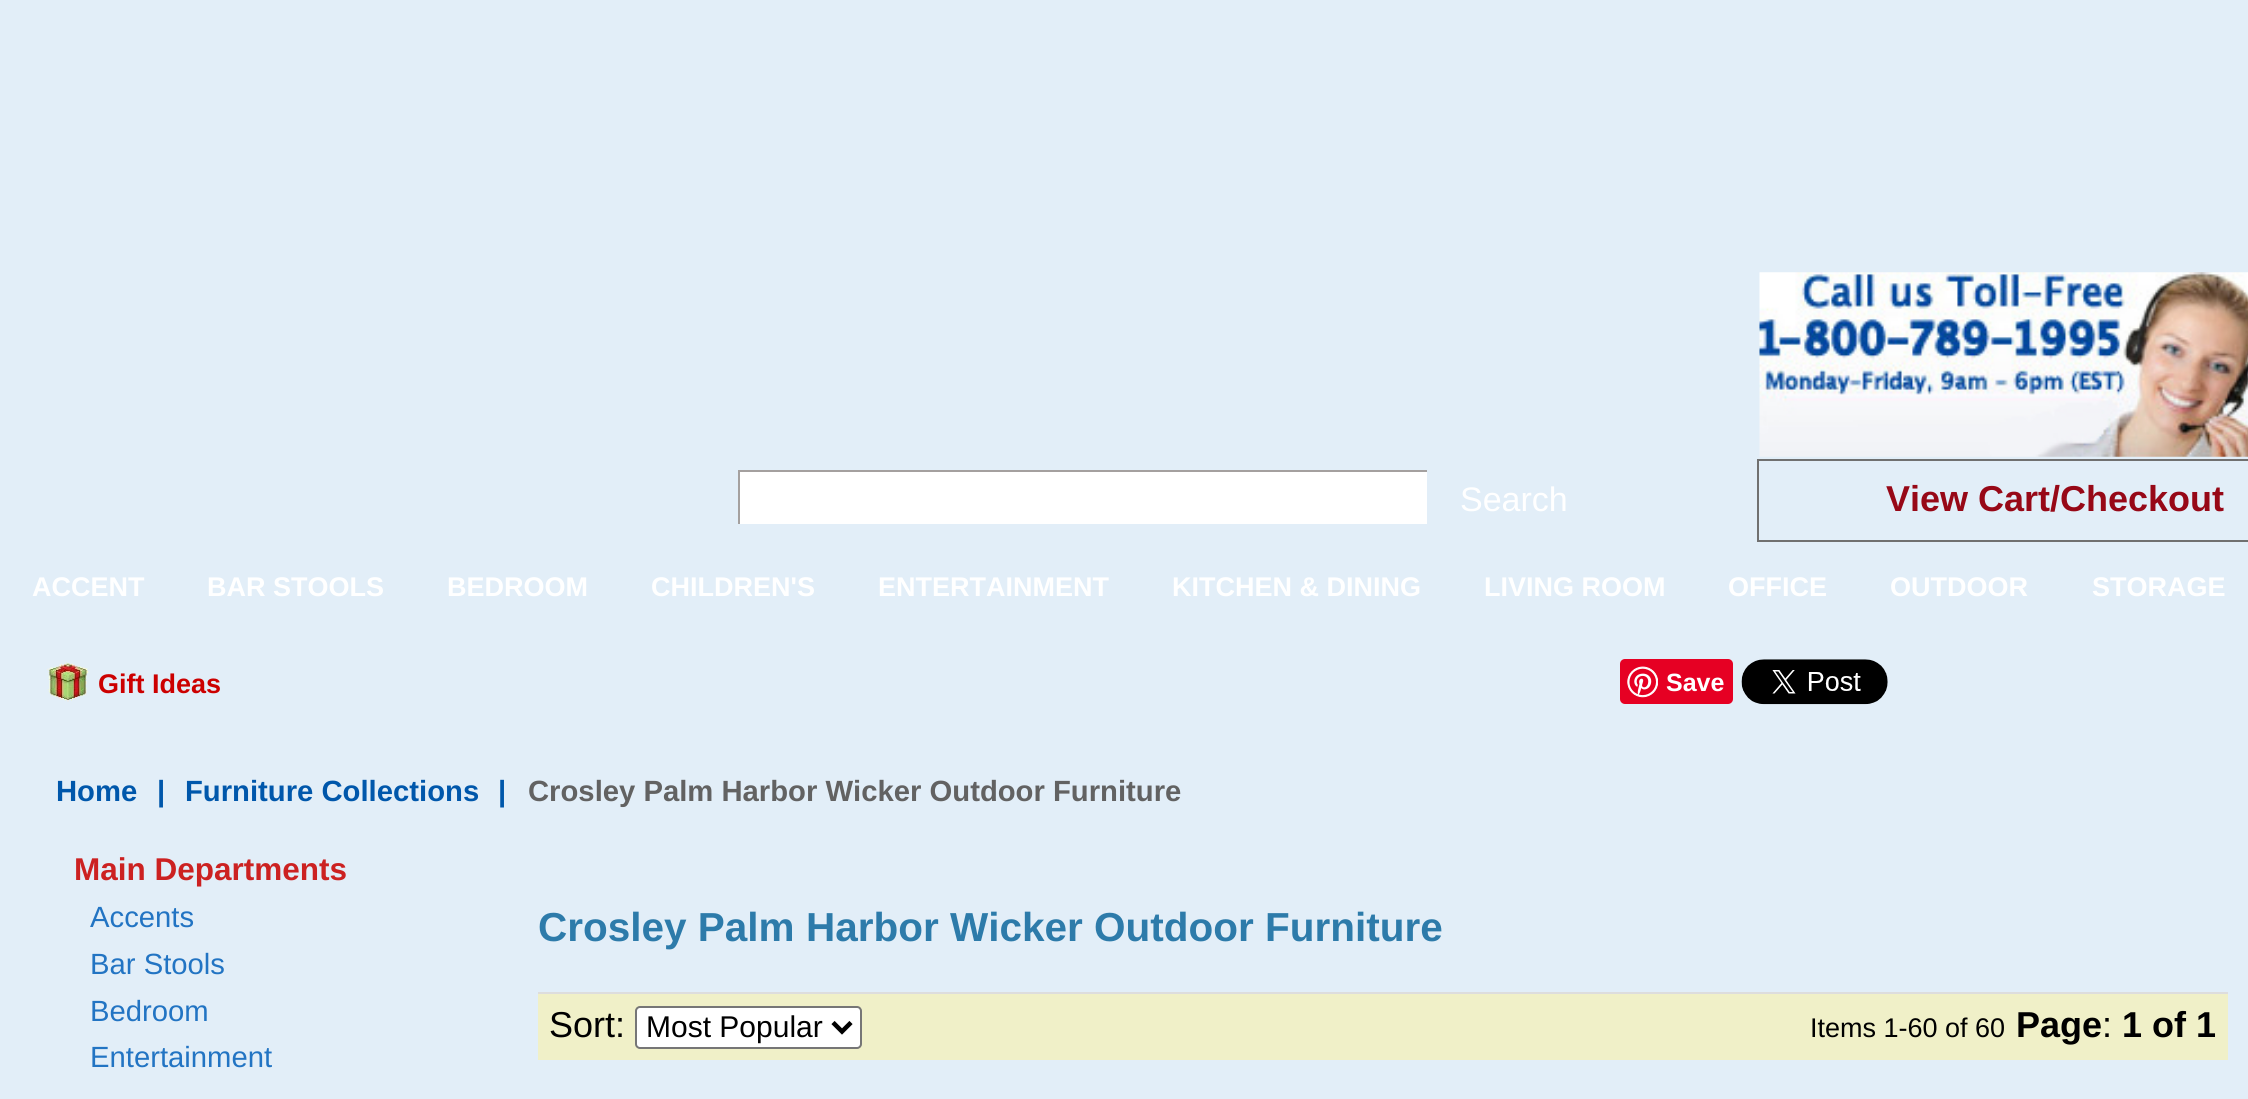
import math
import cairo


def round_path(ctx, x, y, w, h, r):
	ctx.new_sub_path()
	for i, (u, v) in enumerate([(x + w - r, y + h - r), (x + r, y + h - r), (x + r, y + r), (x + w - r, y + r)]):
		ctx.arc(u, v, r, i * math.pi / 2, (i + 1) * math.pi / 2)
	ctx.close_path()

def paste(ctx, path, x, y, w, h):
	ctx.save()
	ctx.set_source_surface(cairo.ImageSurface.create_from_png(path), x, y)
	ctx.rectangle(x, y, w, h)
	ctx.fill()
	ctx.restore()

def draw(ctx):
	ctx.set_source_rgb(0.886, 0.933, 0.969)
	ctx.paint()
	ctx.set_source_rgb(1, 1, 1)
	ctx.rectangle(740, 472, 687, 52)
	ctx.fill()
	ctx.set_source_rgb(0.643, 0.627, 0.624)
	ctx.rectangle(738, 470, 689, 2)
	ctx.rectangle(738, 470, 2, 54)
	ctx.fill()
	ctx.select_font_face('Liberation Sans')
	ctx.set_font_size(34)
	ctx.set_source_rgb(1, 1, 1)
	ctx.move_to(1460, 511)
	ctx.show_text('Search')
	paste(ctx, 'media/1.png', 1759, 272, 489, 185)
	ctx.rectangle(1758, 460, 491, 81)
	ctx.set_source_rgb(0.439, 0.439, 0.439)
	ctx.stroke()
	ctx.select_font_face('Liberation Sans', cairo.FONT_SLANT_NORMAL, cairo.FONT_WEIGHT_BOLD)
	ctx.set_font_size(36)
	ctx.set_source_rgb(0.592, 0.035, 0.09)
	ctx.move_to(1886, 511)
	ctx.show_text('View Cart/Checkout')
	ctx.set_font_size(27)
	ctx.set_source_rgb(1, 1, 1)
	for x, y, s in [
		(32, 596, 'ACCENT'),
		(207, 596, 'BAR STOOLS'),
		(447, 596, 'BEDROOM'),
		(651, 596, 'CHILDREN\'S'),
		(878, 596, 'ENTERTAINMENT'),
		(1172, 596, 'KITCHEN & DINING'),
		(1484, 596, 'LIVING ROOM'),
		(1728, 596, 'OFFICE'),
		(1890, 596, 'OUTDOOR'),
		(2092, 596, 'STORAGE'),
	]:
		ctx.move_to(x, y)
		ctx.show_text(s)
	paste(ctx, 'media/2.png', 47, 662, 42, 40)
	ctx.set_source_rgb(0.8, 0, 0)
	ctx.move_to(98, 693)
	ctx.show_text('Gift Ideas')
	ctx.set_source_rgb(0.902, 0, 0.137)
	round_path(ctx, 1620, 659, 113, 45, 5)
	ctx.fill()
	paste(ctx, 'media/3.png', 1627, 666, 31, 32)
	ctx.set_font_size(25)
	ctx.set_source_rgb(1, 1, 1)
	ctx.move_to(1666, 691)
	ctx.show_text('Save')
	paste(ctx, 'media/4.png', 1741, 659, 147, 46)
	ctx.set_font_size(29.25)
	ctx.set_source_rgb(0, 0.341, 0.671)
	for x, y, s in [
		(56, 801, 'Home'),
		(157, 801, '|'),
		(185, 801, 'Furniture Collections'),
		(498, 801, '|'),
	]:
		ctx.move_to(x, y)
		ctx.show_text(s)
	ctx.set_source_rgb(0.384, 0.384, 0.384)
	ctx.move_to(528, 801)
	ctx.show_text('Crosley Palm Harbor Wicker Outdoor Furniture')
	ctx.set_font_size(31.5)
	ctx.set_source_rgb(0.8, 0.129, 0.129)
	ctx.move_to(74, 880)
	ctx.show_text('Main Departments')
	ctx.select_font_face('Liberation Sans')
	ctx.set_font_size(29.25)
	ctx.set_source_rgb(0.133, 0.455, 0.765)
	for x, y, s in [
		(90, 927, 'Accents'),
		(90, 974, 'Bar Stools'),
		(90, 1021, 'Bedroom'),
		(90, 1067, 'Entertainment'),
	]:
		ctx.move_to(x, y)
		ctx.show_text(s)
	ctx.select_font_face('Liberation Sans', cairo.FONT_SLANT_NORMAL, cairo.FONT_WEIGHT_BOLD)
	ctx.set_font_size(40.5)
	ctx.set_source_rgb(0.176, 0.482, 0.667)
	ctx.move_to(538, 941)
	ctx.show_text('Crosley Palm Harbor Wicker Outdoor Furniture')
	ctx.set_source_rgb(0.941, 0.941, 0.784)
	ctx.rectangle(538, 994, 1690, 66)
	ctx.fill()
	ctx.set_source_rgb(0.867, 0.867, 0.867)
	ctx.rectangle(538, 992, 1690, 2)
	ctx.fill()
	ctx.select_font_face('Liberation Sans')
	ctx.set_font_size(36)
	ctx.set_source_rgb(0, 0, 0)
	ctx.move_to(549, 1037)
	ctx.show_text('Sort:')
	ctx.set_source_rgb(1, 1, 1)
	round_path(ctx, 636, 1007, 225, 41, 4)
	ctx.fill_preserve()
	ctx.set_source_rgb(0.463, 0.463, 0.463)
	ctx.stroke()
	ctx.new_path()
	ctx.move_to(833, 1022.5)
	ctx.line_to(842, 1031.5)
	ctx.line_to(851, 1022.5)
	ctx.set_source_rgb(0, 0, 0)
	ctx.set_line_width(4.5)
	ctx.stroke()
	ctx.set_font_size(30)
	ctx.move_to(646, 1037)
	ctx.show_text('Most Popular')
	ctx.set_font_size(27)
	ctx.move_to(1810, 1037)
	ctx.show_text('Items 1-60 of 60')
	ctx.select_font_face('Liberation Sans', cairo.FONT_SLANT_NORMAL, cairo.FONT_WEIGHT_BOLD)
	ctx.set_font_size(36)
	ctx.move_to(2016, 1037)
	ctx.show_text('Page')
	ctx.select_font_face('Liberation Sans')
	ctx.move_to(2102, 1037)
	ctx.show_text(':')
	ctx.select_font_face('Liberation Sans', cairo.FONT_SLANT_NORMAL, cairo.FONT_WEIGHT_BOLD)
	ctx.move_to(2122, 1037)
	ctx.show_text('1 of 1')


surface = cairo.ImageSurface(cairo.FORMAT_RGB24, 2248, 1099)
ctx = cairo.Context(surface)
options = cairo.FontOptions()
options.set_hint_metrics(cairo.HINT_METRICS_OFF)
options.set_hint_style(cairo.HINT_STYLE_NONE)
ctx.set_font_options(options)
ctx.set_miter_limit(4)
draw(ctx)
surface.write_to_png('image.png')
